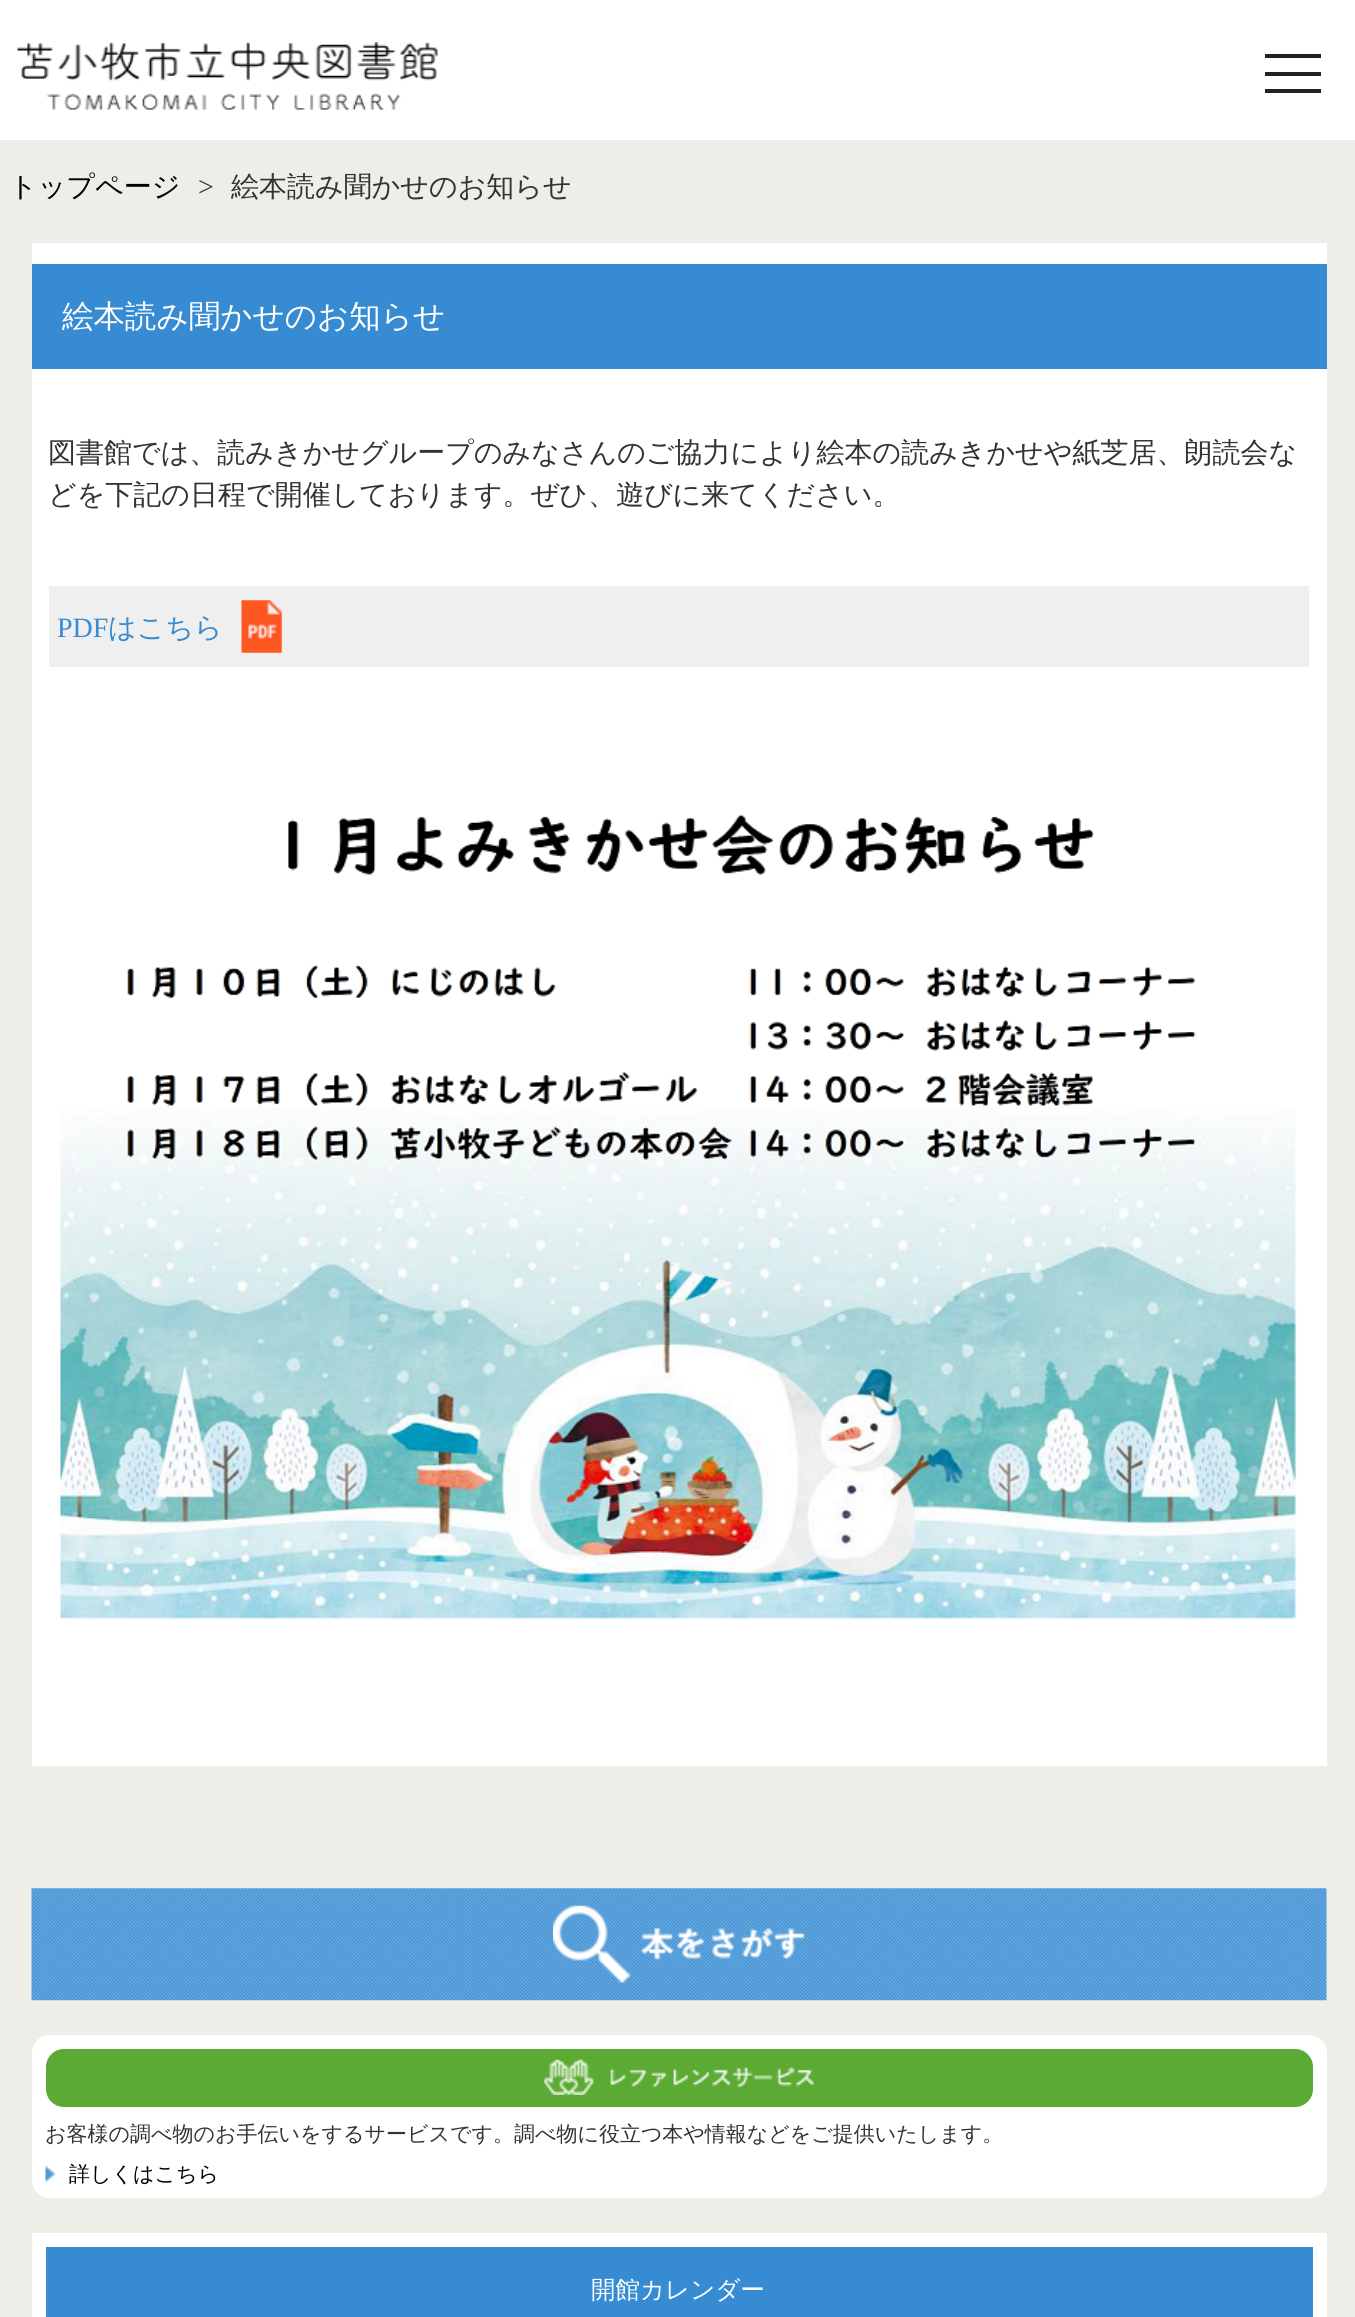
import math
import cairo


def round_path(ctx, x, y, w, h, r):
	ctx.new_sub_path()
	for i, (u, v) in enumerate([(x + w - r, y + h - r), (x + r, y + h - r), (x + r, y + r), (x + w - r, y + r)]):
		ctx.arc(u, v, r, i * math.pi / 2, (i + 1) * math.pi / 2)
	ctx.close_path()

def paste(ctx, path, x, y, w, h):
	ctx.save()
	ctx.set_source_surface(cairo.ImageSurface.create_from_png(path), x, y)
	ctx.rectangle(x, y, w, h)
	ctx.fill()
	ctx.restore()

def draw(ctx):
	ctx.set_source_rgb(0.933, 0.929, 0.91)
	ctx.paint()
	ctx.set_source_rgb(1, 1, 1)
	ctx.rectangle(0, 0, 1355, 140)
	ctx.fill()
	paste(ctx, 'media/1.png', 17, 42, 421, 68)
	ctx.set_source_rgb(0.133, 0.133, 0.133)
	ctx.rectangle(1265, 72, 56, 4)
	ctx.rectangle(1265, 54, 56, 4)
	ctx.rectangle(1265, 89, 56, 4)
	ctx.fill()
	ctx.select_font_face('WenQuanYi Zen Hei Medium')
	ctx.set_font_size(28)
	ctx.set_source_rgb(0, 0, 0)
	ctx.move_to(9, 196)
	ctx.show_text('トップページ')
	ctx.select_font_face('Liberation Serif')
	ctx.set_source_rgb(0.2, 0.2, 0.2)
	ctx.move_to(198, 196)
	ctx.show_text('>')
	ctx.select_font_face('WenQuanYi Zen Hei Medium')
	ctx.move_to(231, 196)
	ctx.show_text('絵本読み聞かせのお知らせ')
	ctx.set_source_rgb(1, 1, 1)
	ctx.rectangle(32, 243, 1295, 1523)
	ctx.fill()
	ctx.set_source_rgb(0.212, 0.545, 0.824)
	ctx.rectangle(32, 264, 1295, 105)
	ctx.fill()
	ctx.set_font_size(31.5)
	ctx.set_source_rgb(1, 1, 1)
	ctx.move_to(62, 327)
	ctx.show_text('絵本読み聞かせのお知らせ')
	ctx.set_font_size(28)
	ctx.set_source_rgb(0.2, 0.2, 0.2)
	ctx.move_to(48, 462)
	ctx.show_text('図書館では、読みきかせグループのみなさんのご協力により絵本の読みきかせや紙芝居、朗読会な')
	ctx.move_to(48, 504)
	ctx.show_text('どを下記の日程で開催しております。ぜひ、遊びに来てください。')
	ctx.set_source_rgb(0.937, 0.937, 0.937)
	ctx.rectangle(49, 586, 1260, 81)
	ctx.fill()
	paste(ctx, 'media/2.png', 241, 600, 41, 53)
	ctx.select_font_face('Liberation Serif')
	ctx.set_source_rgb(0.212, 0.545, 0.824)
	ctx.move_to(57, 637)
	ctx.show_text('PDF')
	ctx.select_font_face('WenQuanYi Zen Hei Medium')
	ctx.move_to(108, 637)
	ctx.show_text('はこちら')
	paste(ctx, 'media/3.png', 60, 815, 1237, 804)
	paste(ctx, 'media/4.png', 31, 1888, 1296, 113)
	paste(ctx, 'media/5.png', 553, 1905, 252, 78)
	ctx.set_source_rgb(1, 1, 1)
	round_path(ctx, 32, 2035, 1295, 163, 18)
	ctx.fill()
	ctx.set_source_rgb(0.353, 0.667, 0.2)
	round_path(ctx, 46, 2049, 1267, 58, 18)
	ctx.fill()
	paste(ctx, 'media/6.png', 544, 2059, 270, 36)
	ctx.set_font_size(21)
	ctx.set_source_rgb(0.2, 0.2, 0.2)
	ctx.move_to(45, 2141)
	ctx.show_text('お客様の調べ物のお手伝いをするサービスです。調べ物に役立つ本や情報などをご提供いたします。')
	paste(ctx, 'media/7.png', 45, 2166, 11, 17)
	ctx.set_source_rgb(0, 0, 0)
	ctx.move_to(69, 2181)
	ctx.show_text('詳しくはこちら')
	ctx.set_source_rgb(1, 1, 1)
	ctx.rectangle(32, 2233, 1295, 84)
	ctx.fill()
	ctx.set_source_rgb(0.212, 0.545, 0.824)
	ctx.rectangle(46, 2247, 1267, 70)
	ctx.fill()
	ctx.set_font_size(24.5)
	ctx.set_source_rgb(1, 1, 1)
	ctx.move_to(591, 2298)
	ctx.show_text('開館カレンダー')


surface = cairo.ImageSurface(cairo.FORMAT_RGB24, 1355, 2317)
ctx = cairo.Context(surface)
options = cairo.FontOptions()
options.set_hint_metrics(cairo.HINT_METRICS_OFF)
options.set_hint_style(cairo.HINT_STYLE_NONE)
ctx.set_font_options(options)
ctx.set_miter_limit(4)
draw(ctx)
surface.write_to_png('image.png')
